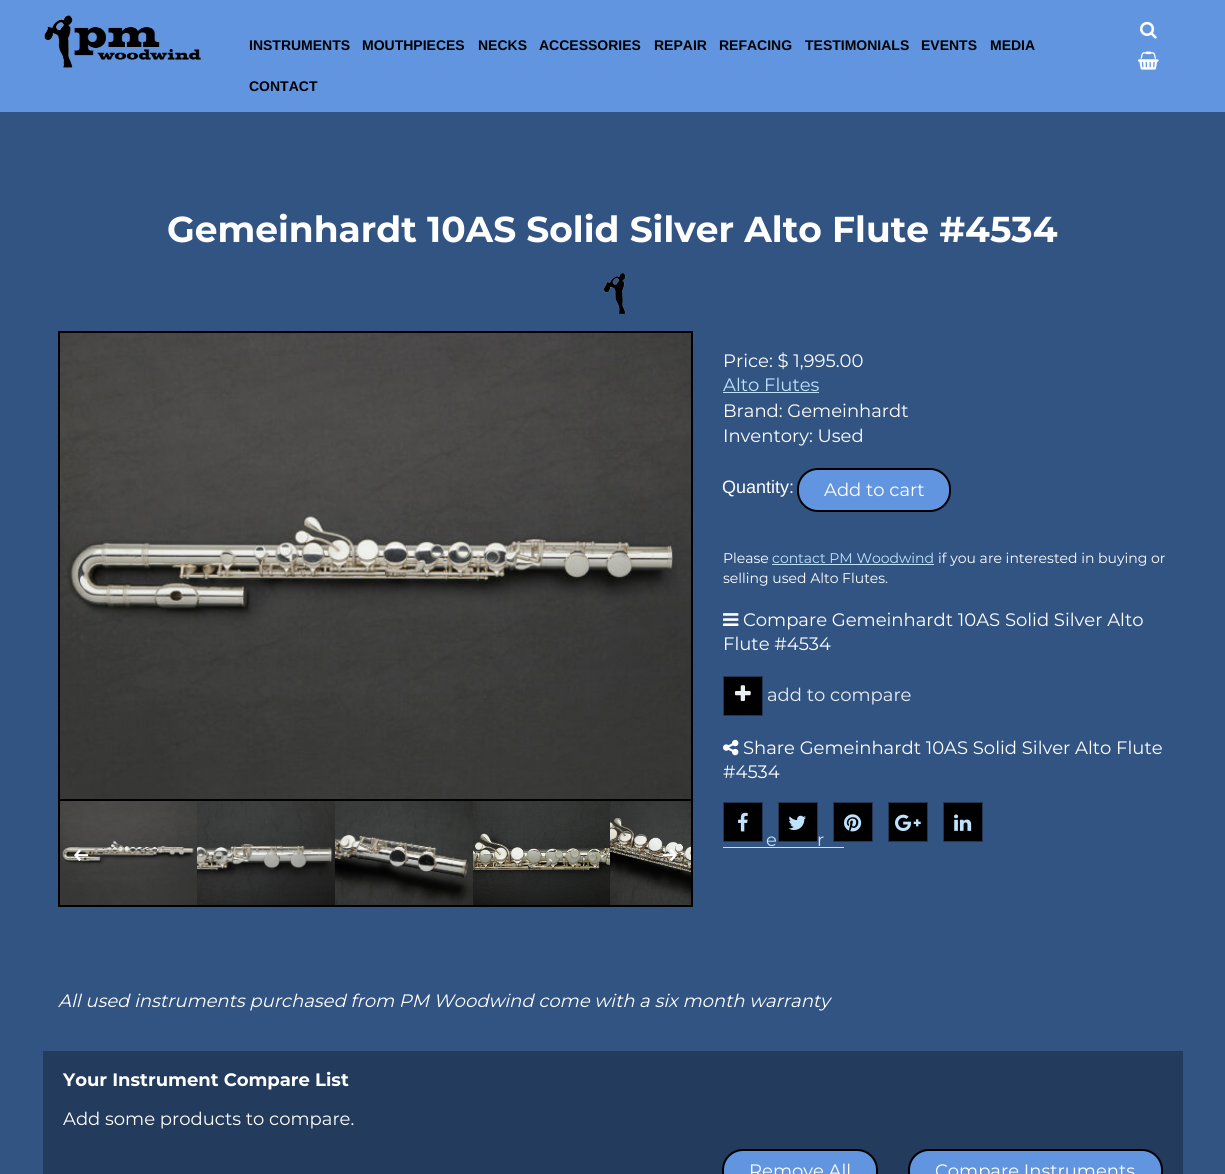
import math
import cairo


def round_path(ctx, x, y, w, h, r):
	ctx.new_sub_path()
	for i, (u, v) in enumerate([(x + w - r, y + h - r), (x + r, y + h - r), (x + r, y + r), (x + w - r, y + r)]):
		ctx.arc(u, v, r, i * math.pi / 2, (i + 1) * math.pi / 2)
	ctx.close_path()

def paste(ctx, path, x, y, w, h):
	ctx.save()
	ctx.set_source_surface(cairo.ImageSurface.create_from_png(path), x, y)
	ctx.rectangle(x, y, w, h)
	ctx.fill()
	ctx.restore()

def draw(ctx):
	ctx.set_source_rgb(0.196, 0.329, 0.514)
	ctx.paint()
	ctx.set_source_rgb(0.38, 0.584, 0.878)
	ctx.rectangle(0, 0, 1225, 112)
	ctx.fill()
	paste(ctx, 'media/1.png', 44, 15, 157, 53)
	ctx.select_font_face('Liberation Sans', cairo.FONT_SLANT_NORMAL, cairo.FONT_WEIGHT_BOLD)
	ctx.set_font_size(14)
	ctx.set_source_rgb(0, 0, 0)
	for x, y, s in [
		(249, 50, 'INSTRUMENTS'),
		(362, 50, 'MOUTHPIECES'),
		(478, 50, 'NECKS'),
		(539, 50, 'ACCESSORIES'),
		(654, 50, 'REPAIR'),
		(719, 50, 'REFACING'),
		(805, 50, 'TESTIMONIALS'),
		(921, 50, 'EVENTS'),
		(990, 50, 'MEDIA'),
		(249, 91, 'CONTACT'),
	]:
		ctx.move_to(x, y)
		ctx.show_text(s)
	paste(ctx, 'media/2.png', 1140, 21, 17, 18)
	paste(ctx, 'media/3.png', 1138, 51, 21, 19)
	ctx.select_font_face('Montserrat', cairo.FONT_SLANT_NORMAL, cairo.FONT_WEIGHT_BOLD)
	ctx.set_font_size(36)
	ctx.set_source_rgb(1, 1, 1)
	ctx.move_to(167, 242)
	ctx.show_text('Gemeinhardt 10AS Solid Silver Alto Flute #4534')
	paste(ctx, 'media/4.png', 604, 273, 22, 41)
	ctx.rectangle(59, 332, 633, 476)
	ctx.set_source_rgb(0, 0, 0)
	ctx.stroke()
	paste(ctx, 'media/5.png', 60, 333, 631, 466)
	ctx.rectangle(59, 800, 633, 106)
	ctx.stroke()
	paste(ctx, 'media/6.png', 60, 801, 137, 104)
	paste(ctx, 'media/7.png', 197, 801, 138, 104)
	paste(ctx, 'media/8.png', 335, 801, 138, 104)
	paste(ctx, 'media/9.png', 473, 801, 137, 104)
	paste(ctx, 'media/10.png', 610, 801, 81, 104)
	paste(ctx, 'media/11.png', 74, 849, 14, 13)
	paste(ctx, 'media/12.png', 663, 849, 14, 13)
	ctx.select_font_face('Montserrat')
	ctx.set_font_size(18)
	ctx.set_source_rgb(1, 1, 1)
	ctx.move_to(723, 367)
	ctx.show_text('Price: $ 1,995.00')
	ctx.set_source_rgb(0.749, 0.886, 1)
	ctx.move_to(723, 391)
	ctx.show_text('Alto Flutes')
	ctx.rectangle(723, 392, 96, 1)
	ctx.fill()
	ctx.set_source_rgb(1, 1, 1)
	ctx.move_to(723, 417)
	ctx.show_text('Brand: Gemeinhardt')
	ctx.move_to(723, 442)
	ctx.show_text('Inventory: Used')
	ctx.select_font_face('Liberation Sans')
	ctx.move_to(722, 493)
	ctx.show_text('Quantity:')
	ctx.set_source_rgb(0.38, 0.584, 0.878)
	round_path(ctx, 798, 469, 152, 42, 20)
	ctx.fill_preserve()
	ctx.set_source_rgb(0, 0, 0)
	ctx.stroke()
	ctx.select_font_face('Montserrat')
	ctx.set_source_rgb(1, 1, 1)
	ctx.move_to(824, 496)
	ctx.show_text('Add to cart')
	ctx.set_font_size(14)
	ctx.move_to(723, 563)
	ctx.show_text('Please')
	ctx.set_source_rgb(0.749, 0.886, 1)
	ctx.move_to(772, 563)
	ctx.show_text('contact PM Woodwind')
	ctx.rectangle(772, 564, 162, 1)
	ctx.fill()
	ctx.set_source_rgb(1, 1, 1)
	ctx.move_to(938, 563)
	ctx.show_text('if you are interested in buying or')
	ctx.move_to(723, 583)
	ctx.show_text('selling used Alto Flutes.')
	paste(ctx, 'media/13.png', 723, 613, 16, 13)
	ctx.set_font_size(18)
	ctx.move_to(743, 626)
	ctx.show_text('Compare Gemeinhardt 10AS Solid Silver Alto')
	ctx.move_to(723, 650)
	ctx.show_text('Flute #4534')
	ctx.set_source_rgb(0, 0, 0)
	ctx.rectangle(723.5, 676.5, 39, 39)
	ctx.fill_preserve()
	ctx.set_source_rgb(0.141, 0.212, 0.322)
	ctx.set_line_width(1)
	ctx.stroke()
	paste(ctx, 'media/14.png', 735, 685, 16, 16)
	ctx.set_source_rgb(0.918, 0.929, 0.949)
	ctx.move_to(767, 701)
	ctx.show_text('add to compare')
	paste(ctx, 'media/15.png', 723, 739, 16, 17)
	ctx.set_source_rgb(1, 1, 1)
	ctx.move_to(743, 754)
	ctx.show_text('Share Gemeinhardt 10AS Solid Silver Alto Flute')
	ctx.move_to(723, 778)
	ctx.show_text('#4534')
	ctx.set_source_rgb(0, 0, 0)
	ctx.rectangle(723.5, 802.5, 39, 39)
	ctx.fill_preserve()
	ctx.set_source_rgb(0.141, 0.212, 0.322)
	ctx.stroke()
	paste(ctx, 'media/16.png', 738, 812, 10, 20)
	ctx.set_source_rgb(0, 0, 0)
	ctx.rectangle(778.5, 802.5, 39, 39)
	ctx.fill_preserve()
	ctx.set_source_rgb(0.141, 0.212, 0.322)
	ctx.stroke()
	paste(ctx, 'media/17.png', 788, 815, 18, 15)
	ctx.set_source_rgb(0, 0, 0)
	ctx.rectangle(833.5, 802.5, 39, 39)
	ctx.fill_preserve()
	ctx.set_source_rgb(0.141, 0.212, 0.322)
	ctx.stroke()
	paste(ctx, 'media/18.png', 844, 814, 18, 18)
	ctx.set_source_rgb(0, 0, 0)
	ctx.rectangle(888.5, 802.5, 39, 39)
	ctx.fill_preserve()
	ctx.set_source_rgb(0.141, 0.212, 0.322)
	ctx.stroke()
	paste(ctx, 'media/19.png', 895, 814, 26, 17)
	ctx.set_source_rgb(0, 0, 0)
	ctx.rectangle(943.5, 802.5, 39, 39)
	ctx.fill_preserve()
	ctx.set_source_rgb(0.141, 0.212, 0.322)
	ctx.stroke()
	paste(ctx, 'media/20.png', 954, 814, 18, 17)
	ctx.set_source_rgb(0.749, 0.886, 1)
	ctx.move_to(766, 846)
	ctx.show_text('e')
	ctx.rectangle(723, 847, 121, 1)
	ctx.fill()
	ctx.move_to(817, 846)
	ctx.show_text('r')
	ctx.select_font_face('Montserrat', cairo.FONT_SLANT_ITALIC)
	ctx.set_source_rgb(1, 1, 1)
	ctx.move_to(58, 1007)
	ctx.show_text('All used instruments purchased from PM Woodwind come with a six month warranty')
	ctx.set_source_rgb(0.137, 0.231, 0.361)
	ctx.rectangle(43, 1051, 1140, 123)
	ctx.fill()
	ctx.select_font_face('Montserrat', cairo.FONT_SLANT_NORMAL, cairo.FONT_WEIGHT_BOLD)
	ctx.set_source_rgb(1, 1, 1)
	ctx.move_to(63, 1086)
	ctx.show_text('Your Instrument Compare List')
	ctx.select_font_face('Montserrat')
	ctx.move_to(63, 1125)
	ctx.show_text('Add some products to compare.')
	ctx.set_source_rgb(0.38, 0.584, 0.878)
	round_path(ctx, 723, 1150, 154, 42, 20)
	ctx.fill_preserve()
	ctx.set_source_rgb(0, 0, 0)
	ctx.set_line_width(2)
	ctx.stroke()
	ctx.set_source_rgb(1, 1, 1)
	ctx.move_to(749, 1177)
	ctx.show_text('Remove All')
	ctx.set_source_rgb(0.38, 0.584, 0.878)
	round_path(ctx, 909, 1150, 253, 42, 20)
	ctx.fill_preserve()
	ctx.set_source_rgb(0, 0, 0)
	ctx.stroke()
	ctx.set_source_rgb(1, 1, 1)
	ctx.move_to(935, 1177)
	ctx.show_text('Compare Instruments')


surface = cairo.ImageSurface(cairo.FORMAT_RGB24, 1225, 1174)
ctx = cairo.Context(surface)
options = cairo.FontOptions()
options.set_hint_metrics(cairo.HINT_METRICS_OFF)
options.set_hint_style(cairo.HINT_STYLE_NONE)
ctx.set_font_options(options)
ctx.set_miter_limit(4)
draw(ctx)
surface.write_to_png('image.png')
